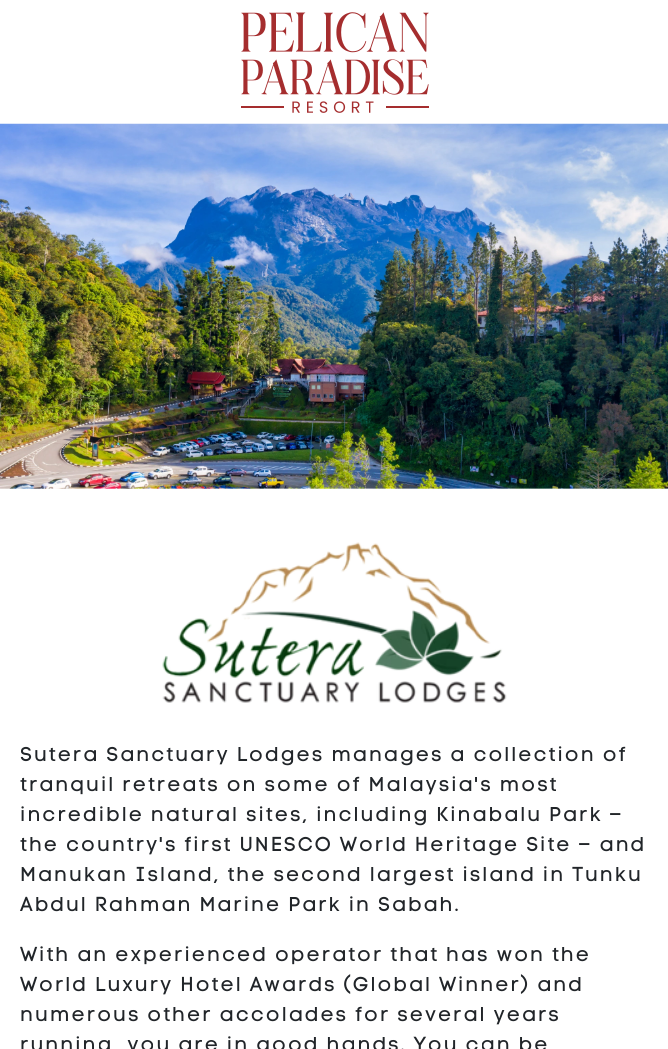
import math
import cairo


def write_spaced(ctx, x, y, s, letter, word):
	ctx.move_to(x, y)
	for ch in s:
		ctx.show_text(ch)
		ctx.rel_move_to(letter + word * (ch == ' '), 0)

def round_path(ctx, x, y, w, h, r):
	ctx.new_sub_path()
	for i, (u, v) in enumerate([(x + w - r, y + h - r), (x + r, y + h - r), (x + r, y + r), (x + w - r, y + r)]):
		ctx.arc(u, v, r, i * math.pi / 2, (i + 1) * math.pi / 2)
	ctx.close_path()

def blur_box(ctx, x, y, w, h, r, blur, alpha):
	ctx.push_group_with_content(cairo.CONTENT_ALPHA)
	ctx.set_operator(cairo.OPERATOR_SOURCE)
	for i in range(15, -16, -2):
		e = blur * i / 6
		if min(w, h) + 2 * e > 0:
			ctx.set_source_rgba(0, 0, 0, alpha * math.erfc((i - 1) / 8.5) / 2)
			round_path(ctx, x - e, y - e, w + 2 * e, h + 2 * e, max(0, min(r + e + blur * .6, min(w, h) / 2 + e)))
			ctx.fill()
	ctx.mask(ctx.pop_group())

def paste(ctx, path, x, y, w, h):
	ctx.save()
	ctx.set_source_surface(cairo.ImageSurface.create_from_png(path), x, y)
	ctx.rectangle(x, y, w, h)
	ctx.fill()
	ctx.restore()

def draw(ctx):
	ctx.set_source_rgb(1, 1, 1)
	ctx.paint()
	ctx.save()
	ctx.set_fill_rule(cairo.FILL_RULE_EVEN_ODD)
	ctx.new_path()
	ctx.move_to(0, 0)
	ctx.line_to(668, 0)
	ctx.line_to(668, 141)
	ctx.line_to(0, 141)
	ctx.close_path()
	ctx.move_to(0, 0)
	ctx.line_to(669, 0)
	ctx.line_to(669, 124)
	ctx.line_to(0, 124)
	ctx.close_path()
	ctx.clip()
	ctx.set_source_rgb(0, 0, 0)
	blur_box(ctx, 1, 6, 667, 122, 0, 4, 0.1)
	ctx.restore()
	paste(ctx, 'media/1.png', 241, 12, 188, 101)
	paste(ctx, 'media/2.png', 0, 123, 668, 366)
	paste(ctx, 'media/3.png', 162, 542, 345, 161)
	ctx.select_font_face('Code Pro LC')
	ctx.set_font_size(20)
	ctx.set_source_rgb(0.129, 0.145, 0.161)
	for x, y, s in [
		(20, 761, 'Sutera Sanctuary Lodges manages a collection of'),
		(20, 791, 'tranquil retreats on some of Malaysia\'s most'),
		(20, 821, 'incredible natural sites, including Kinabalu Park –'),
		(20, 851, 'the country\'s first UNESCO World Heritage Site – and'),
		(20, 881, 'Manukan Island, the second largest island in Tunku'),
		(20, 911, 'Abdul Rahman Marine Park in Sabah.'),
		(20, 961, 'With an experienced operator that has won the'),
		(20, 991, 'World Luxury Hotel Awards (Global Winner) and'),
		(20, 1021, 'numerous other accolades for several years'),
		(20, 1051, 'running, you are in good hands. You can be'),
	]:
		write_spaced(ctx, x, y, s, 2, 0)


surface = cairo.ImageSurface(cairo.FORMAT_RGB24, 668, 1049)
ctx = cairo.Context(surface)
options = cairo.FontOptions()
options.set_hint_metrics(cairo.HINT_METRICS_OFF)
options.set_hint_style(cairo.HINT_STYLE_NONE)
ctx.set_font_options(options)
ctx.set_miter_limit(4)
draw(ctx)
surface.write_to_png('image.png')
